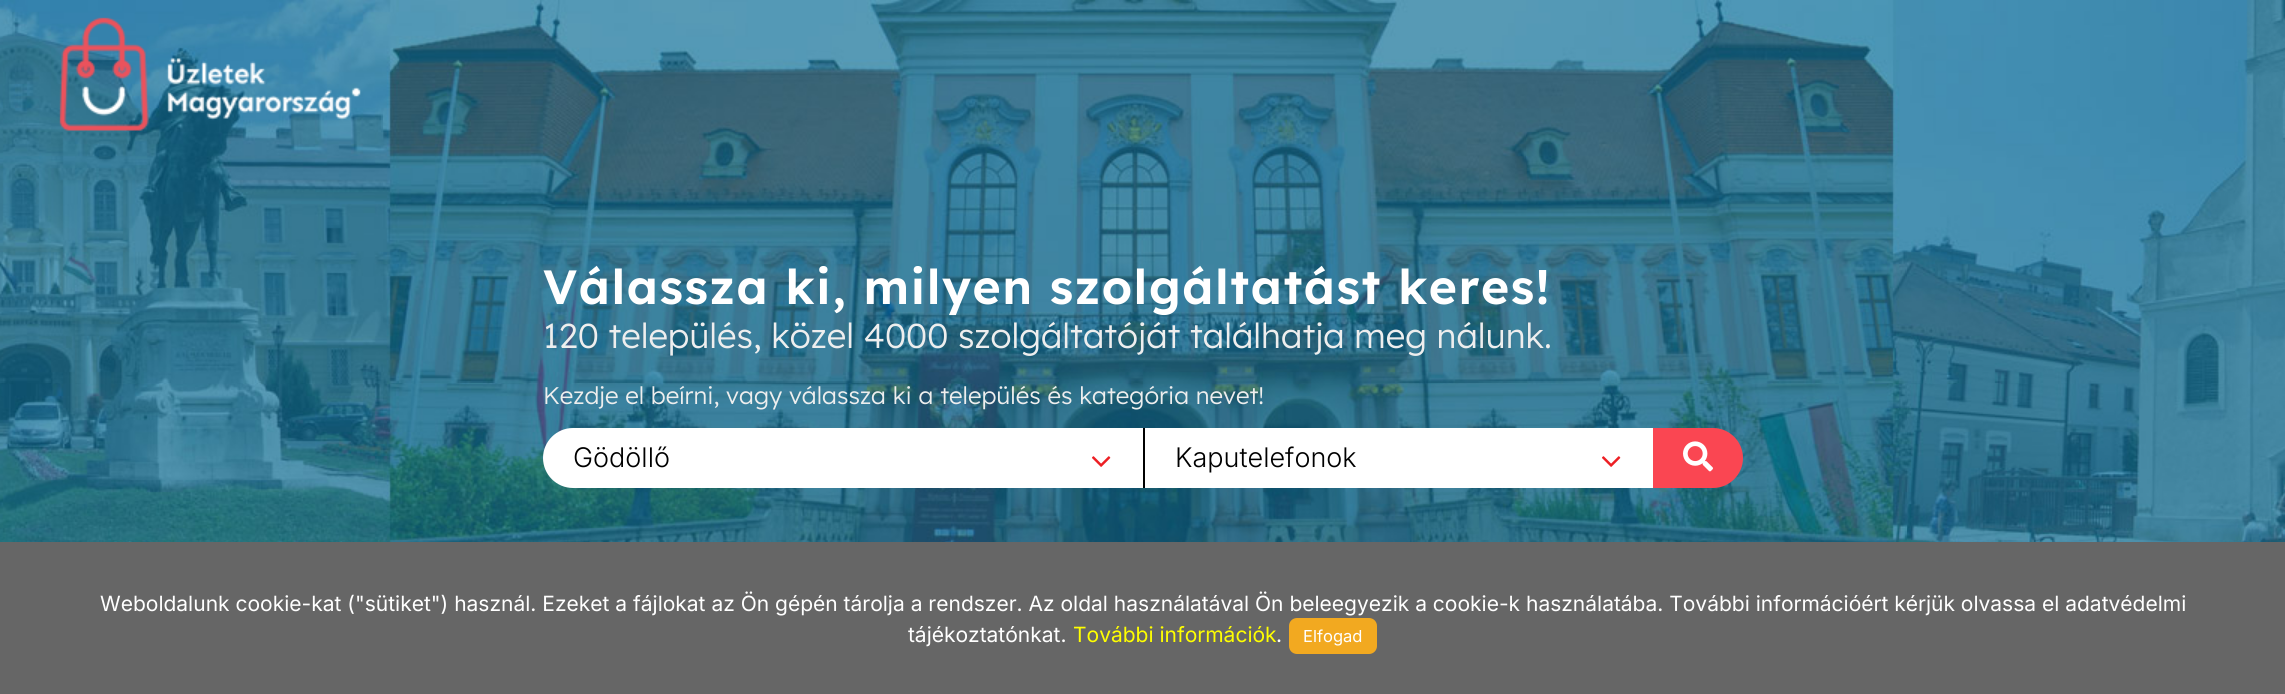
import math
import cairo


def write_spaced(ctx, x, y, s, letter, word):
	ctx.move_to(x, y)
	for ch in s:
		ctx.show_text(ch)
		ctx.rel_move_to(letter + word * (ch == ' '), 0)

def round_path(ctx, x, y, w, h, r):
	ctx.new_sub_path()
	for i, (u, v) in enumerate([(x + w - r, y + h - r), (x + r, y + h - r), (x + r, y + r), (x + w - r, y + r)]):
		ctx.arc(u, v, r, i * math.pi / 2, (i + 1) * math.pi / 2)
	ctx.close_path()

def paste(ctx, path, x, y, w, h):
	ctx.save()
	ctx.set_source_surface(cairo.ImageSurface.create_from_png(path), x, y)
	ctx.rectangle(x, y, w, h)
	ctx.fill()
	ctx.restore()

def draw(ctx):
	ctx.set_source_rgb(1, 1, 1)
	ctx.paint()
	paste(ctx, 'media/2.png', 0, 0, 2285, 542)
	paste(ctx, 'media/1.png', 59, 17, 302, 114)
	ctx.select_font_face('Lexend SemiBold')
	ctx.set_font_size(48)
	ctx.set_source_rgb(1, 1, 1)
	write_spaced(ctx, 543, 304, 'Válassza ki, milyen szolgáltatást keres!', 1.5, 0)
	ctx.select_font_face('Lexend Light')
	ctx.set_font_size(34.5)
	ctx.set_source_rgb(0.933, 0.933, 0.933)
	ctx.move_to(543, 348)
	ctx.show_text('120 település, közel 4000 szolgáltatóját találhatja meg nálunk.')
	ctx.set_font_size(24)
	ctx.move_to(543, 404)
	ctx.show_text('Kezdje el beírni, vagy válassza ki a település és kategória nevet!')
	ctx.set_source_rgb(1, 1, 1)
	ctx.new_path()
	ctx.move_to(573, 428)
	ctx.line_to(1143, 428)
	ctx.line_to(1143, 488)
	ctx.line_to(573, 488)
	ctx.curve_to(556.5, 488, 543, 474.5, 543, 458)
	ctx.curve_to(543, 441.5, 556.5, 428, 573, 428)
	ctx.close_path()
	ctx.fill()
	ctx.select_font_face('Inter Light')
	ctx.set_font_size(27)
	ctx.set_source_rgb(0, 0, 0)
	ctx.move_to(573, 467)
	ctx.show_text('Gödöllő')
	paste(ctx, 'media/3.png', 1092, 456, 19, 11)
	ctx.set_source_rgb(1, 1, 1)
	ctx.rectangle(1145, 428, 508, 60)
	ctx.fill()
	ctx.set_source_rgb(0, 0, 0)
	ctx.rectangle(1143, 428, 2, 60)
	ctx.fill()
	ctx.move_to(1175, 467)
	ctx.show_text('Kaputelefonok')
	paste(ctx, 'media/3.png', 1602, 456, 19, 11)
	ctx.set_source_rgb(0.98, 0.275, 0.322)
	ctx.new_path()
	ctx.move_to(1653, 428)
	ctx.line_to(1713, 428)
	ctx.curve_to(1729.5, 428, 1743, 441.5, 1743, 458)
	ctx.curve_to(1743, 474.5, 1729.5, 488, 1713, 488)
	ctx.line_to(1653, 488)
	ctx.close_path()
	ctx.fill()
	paste(ctx, 'media/4.png', 1683, 441, 30, 31)
	ctx.set_source_rgb(0.4, 0.4, 0.4)
	ctx.rectangle(0, 542, 2285, 152)
	ctx.fill()
	ctx.select_font_face('Inter')
	ctx.set_font_size(21)
	ctx.set_source_rgb(1, 1, 1)
	ctx.move_to(100, 611)
	ctx.show_text('Weboldalunk cookie-kat ("sütiket") használ. Ezeket a fájlokat az Ön gépén tárolja a rendszer. Az oldal használatával Ön beleegyezik a cookie-k használatába. További információért kérjük olvassa el adatvédelmi')
	ctx.move_to(908, 642)
	ctx.show_text('tájékoztatónkat.')
	ctx.set_source_rgb(1, 1, 0)
	ctx.move_to(1073, 642)
	ctx.show_text('További információk')
	ctx.set_source_rgb(1, 1, 1)
	ctx.move_to(1276, 642)
	ctx.show_text('.')
	ctx.set_source_rgb(0.949, 0.663, 0.125)
	round_path(ctx, 1289, 618, 88, 36, 8)
	ctx.fill()
	ctx.set_font_size(16.5)
	ctx.set_source_rgb(1, 1, 1)
	ctx.move_to(1303, 642)
	ctx.show_text('Elfogad')


surface = cairo.ImageSurface(cairo.FORMAT_RGB24, 2285, 694)
ctx = cairo.Context(surface)
options = cairo.FontOptions()
options.set_hint_metrics(cairo.HINT_METRICS_OFF)
options.set_hint_style(cairo.HINT_STYLE_NONE)
ctx.set_font_options(options)
ctx.set_miter_limit(4)
draw(ctx)
surface.write_to_png('image.png')
